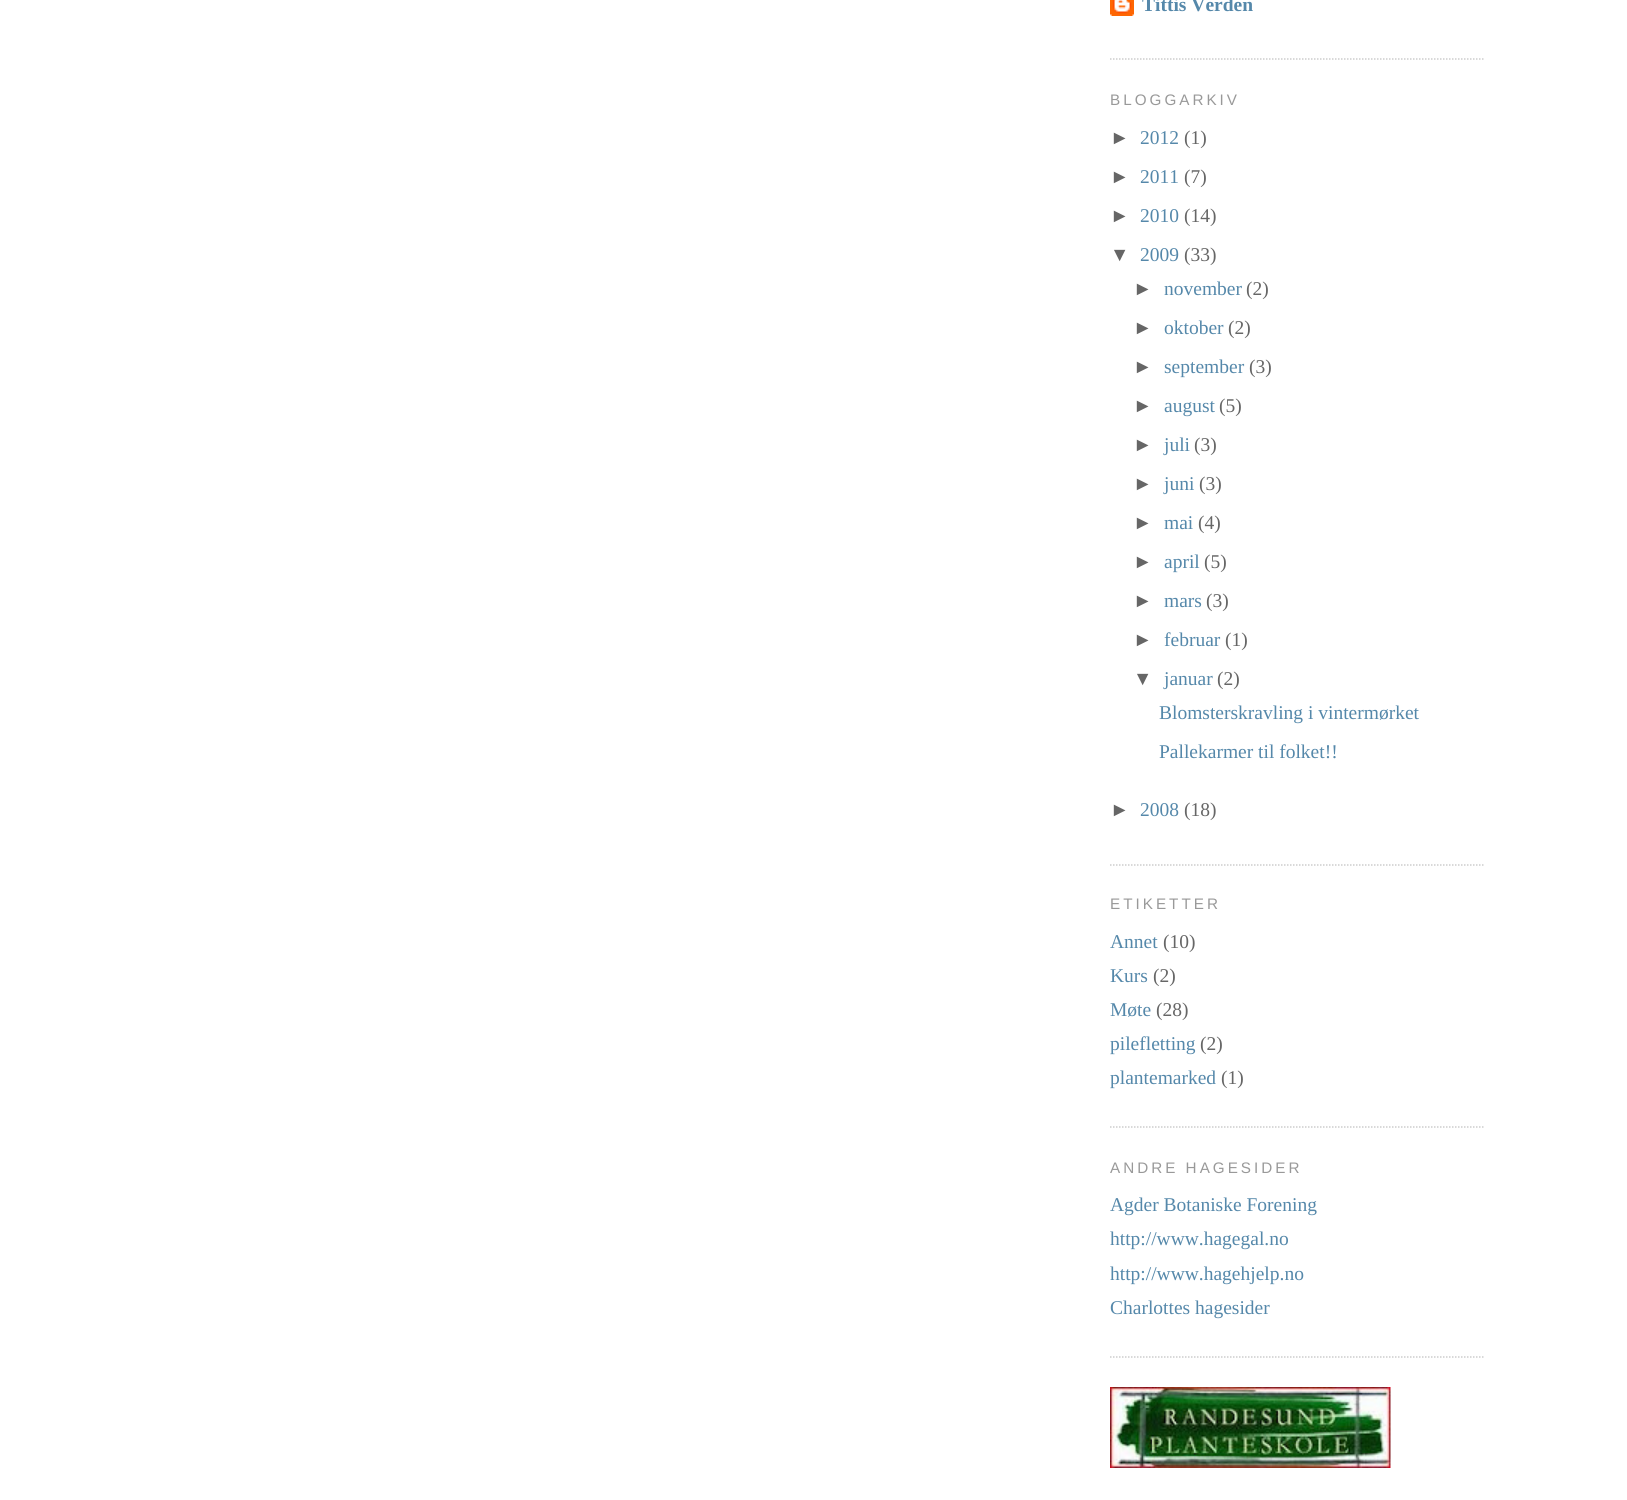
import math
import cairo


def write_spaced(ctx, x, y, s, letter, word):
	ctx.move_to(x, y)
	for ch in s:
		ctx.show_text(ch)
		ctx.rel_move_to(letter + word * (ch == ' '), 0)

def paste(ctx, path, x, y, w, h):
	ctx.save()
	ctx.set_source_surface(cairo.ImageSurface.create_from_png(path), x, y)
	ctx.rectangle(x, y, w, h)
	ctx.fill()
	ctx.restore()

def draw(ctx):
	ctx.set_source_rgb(1, 1, 1)
	ctx.paint()
	ctx.new_path()
	ctx.move_to(1110, 59)
	ctx.line_to(1485, 59)
	ctx.set_source_rgb(0.8, 0.8, 0.8)
	ctx.set_line_width(1.5)
	ctx.set_dash([1.5, 1.5])
	ctx.stroke()
	paste(ctx, 'media/1.png', 1110, 0, 24, 16)
	ctx.select_font_face('Liberation Serif', cairo.FONT_SLANT_NORMAL, cairo.FONT_WEIGHT_BOLD)
	ctx.set_font_size(19.5)
	ctx.set_source_rgb(0.333, 0.533, 0.667)
	ctx.move_to(1142, 11)
	ctx.show_text('Tittis Verden')
	ctx.new_path()
	ctx.move_to(1110, 865)
	ctx.line_to(1485, 865)
	ctx.set_source_rgb(0.8, 0.8, 0.8)
	ctx.stroke()
	ctx.select_font_face('Liberation Sans')
	ctx.set_font_size(15.25)
	ctx.set_source_rgb(0.6, 0.6, 0.6)
	write_spaced(ctx, 1110, 105, 'BLOGGARKIV', 3, 0)
	ctx.set_font_size(19.5)
	ctx.set_source_rgb(0.4, 0.4, 0.4)
	ctx.move_to(1110, 144)
	ctx.show_text('►')
	ctx.select_font_face('Liberation Serif')
	ctx.set_source_rgb(0.333, 0.533, 0.667)
	ctx.move_to(1140, 144)
	ctx.show_text('2012')
	ctx.set_source_rgb(0.4, 0.4, 0.4)
	ctx.move_to(1184, 144)
	ctx.show_text('(1)')
	ctx.select_font_face('Liberation Sans')
	ctx.move_to(1110, 183)
	ctx.show_text('►')
	ctx.select_font_face('Liberation Serif')
	ctx.set_source_rgb(0.333, 0.533, 0.667)
	ctx.move_to(1140, 183)
	ctx.show_text('2011')
	ctx.set_source_rgb(0.4, 0.4, 0.4)
	ctx.move_to(1184, 183)
	ctx.show_text('(7)')
	ctx.select_font_face('Liberation Sans')
	ctx.move_to(1110, 222)
	ctx.show_text('►')
	ctx.select_font_face('Liberation Serif')
	ctx.set_source_rgb(0.333, 0.533, 0.667)
	ctx.move_to(1140, 222)
	ctx.show_text('2010')
	ctx.set_source_rgb(0.4, 0.4, 0.4)
	ctx.move_to(1184, 222)
	ctx.show_text('(14)')
	ctx.select_font_face('Liberation Sans')
	ctx.move_to(1110, 261)
	ctx.show_text('▼')
	ctx.select_font_face('Liberation Serif')
	ctx.set_source_rgb(0.333, 0.533, 0.667)
	ctx.move_to(1140, 261)
	ctx.show_text('2009')
	ctx.set_source_rgb(0.4, 0.4, 0.4)
	ctx.move_to(1184, 261)
	ctx.show_text('(33)')
	ctx.select_font_face('Liberation Sans')
	ctx.move_to(1133, 295)
	ctx.show_text('►')
	ctx.select_font_face('Liberation Serif')
	ctx.set_source_rgb(0.333, 0.533, 0.667)
	ctx.move_to(1164, 295)
	ctx.show_text('november')
	ctx.set_source_rgb(0.4, 0.4, 0.4)
	ctx.move_to(1246, 295)
	ctx.show_text('(2)')
	ctx.select_font_face('Liberation Sans')
	ctx.move_to(1133, 334)
	ctx.show_text('►')
	ctx.select_font_face('Liberation Serif')
	ctx.set_source_rgb(0.333, 0.533, 0.667)
	ctx.move_to(1164, 334)
	ctx.show_text('oktober')
	ctx.set_source_rgb(0.4, 0.4, 0.4)
	ctx.move_to(1228, 334)
	ctx.show_text('(2)')
	ctx.select_font_face('Liberation Sans')
	ctx.move_to(1133, 373)
	ctx.show_text('►')
	ctx.select_font_face('Liberation Serif')
	ctx.set_source_rgb(0.333, 0.533, 0.667)
	ctx.move_to(1164, 373)
	ctx.show_text('september')
	ctx.set_source_rgb(0.4, 0.4, 0.4)
	ctx.move_to(1249, 373)
	ctx.show_text('(3)')
	ctx.select_font_face('Liberation Sans')
	ctx.move_to(1133, 412)
	ctx.show_text('►')
	ctx.select_font_face('Liberation Serif')
	ctx.set_source_rgb(0.333, 0.533, 0.667)
	ctx.move_to(1164, 412)
	ctx.show_text('august')
	ctx.set_source_rgb(0.4, 0.4, 0.4)
	ctx.move_to(1219, 412)
	ctx.show_text('(5)')
	ctx.select_font_face('Liberation Sans')
	ctx.move_to(1133, 451)
	ctx.show_text('►')
	ctx.select_font_face('Liberation Serif')
	ctx.set_source_rgb(0.333, 0.533, 0.667)
	ctx.move_to(1164, 451)
	ctx.show_text('juli')
	ctx.set_source_rgb(0.4, 0.4, 0.4)
	ctx.move_to(1194, 451)
	ctx.show_text('(3)')
	ctx.select_font_face('Liberation Sans')
	ctx.move_to(1133, 490)
	ctx.show_text('►')
	ctx.select_font_face('Liberation Serif')
	ctx.set_source_rgb(0.333, 0.533, 0.667)
	ctx.move_to(1164, 490)
	ctx.show_text('juni')
	ctx.set_source_rgb(0.4, 0.4, 0.4)
	ctx.move_to(1199, 490)
	ctx.show_text('(3)')
	ctx.select_font_face('Liberation Sans')
	ctx.move_to(1133, 529)
	ctx.show_text('►')
	ctx.select_font_face('Liberation Serif')
	ctx.set_source_rgb(0.333, 0.533, 0.667)
	ctx.move_to(1164, 529)
	ctx.show_text('mai')
	ctx.set_source_rgb(0.4, 0.4, 0.4)
	ctx.move_to(1198, 529)
	ctx.show_text('(4)')
	ctx.select_font_face('Liberation Sans')
	ctx.move_to(1133, 568)
	ctx.show_text('►')
	ctx.select_font_face('Liberation Serif')
	ctx.set_source_rgb(0.333, 0.533, 0.667)
	ctx.move_to(1164, 568)
	ctx.show_text('april')
	ctx.set_source_rgb(0.4, 0.4, 0.4)
	ctx.move_to(1204, 568)
	ctx.show_text('(5)')
	ctx.select_font_face('Liberation Sans')
	ctx.move_to(1133, 607)
	ctx.show_text('►')
	ctx.select_font_face('Liberation Serif')
	ctx.set_source_rgb(0.333, 0.533, 0.667)
	ctx.move_to(1164, 607)
	ctx.show_text('mars')
	ctx.set_source_rgb(0.4, 0.4, 0.4)
	ctx.move_to(1206, 607)
	ctx.show_text('(3)')
	ctx.select_font_face('Liberation Sans')
	ctx.move_to(1133, 646)
	ctx.show_text('►')
	ctx.select_font_face('Liberation Serif')
	ctx.set_source_rgb(0.333, 0.533, 0.667)
	ctx.move_to(1164, 646)
	ctx.show_text('februar')
	ctx.set_source_rgb(0.4, 0.4, 0.4)
	ctx.move_to(1225, 646)
	ctx.show_text('(1)')
	ctx.select_font_face('Liberation Sans')
	ctx.move_to(1133, 685)
	ctx.show_text('▼')
	ctx.select_font_face('Liberation Serif')
	ctx.set_source_rgb(0.333, 0.533, 0.667)
	ctx.move_to(1164, 685)
	ctx.show_text('januar')
	ctx.set_source_rgb(0.4, 0.4, 0.4)
	ctx.move_to(1217, 685)
	ctx.show_text('(2)')
	ctx.set_source_rgb(0.333, 0.533, 0.667)
	ctx.move_to(1159, 719)
	ctx.show_text('Blomsterskravling i vintermørket')
	ctx.move_to(1159, 758)
	ctx.show_text('Pallekarmer til folket!!')
	ctx.select_font_face('Liberation Sans')
	ctx.set_source_rgb(0.4, 0.4, 0.4)
	ctx.move_to(1110, 816)
	ctx.show_text('►')
	ctx.select_font_face('Liberation Serif')
	ctx.set_source_rgb(0.333, 0.533, 0.667)
	ctx.move_to(1140, 816)
	ctx.show_text('2008')
	ctx.set_source_rgb(0.4, 0.4, 0.4)
	ctx.move_to(1184, 816)
	ctx.show_text('(18)')
	ctx.new_path()
	ctx.move_to(1110, 1127)
	ctx.line_to(1485, 1127)
	ctx.set_source_rgb(0.8, 0.8, 0.8)
	ctx.stroke()
	ctx.select_font_face('Liberation Sans')
	ctx.set_font_size(15.25)
	ctx.set_source_rgb(0.6, 0.6, 0.6)
	write_spaced(ctx, 1110, 909, 'ETIKETTER', 3, 0)
	ctx.select_font_face('Liberation Serif')
	ctx.set_font_size(19.5)
	ctx.set_source_rgb(0.333, 0.533, 0.667)
	ctx.move_to(1110, 948)
	ctx.show_text('Annet')
	ctx.set_source_rgb(0.4, 0.4, 0.4)
	ctx.move_to(1163, 948)
	ctx.show_text('(10)')
	ctx.set_source_rgb(0.333, 0.533, 0.667)
	ctx.move_to(1110, 982)
	ctx.show_text('Kurs')
	ctx.set_source_rgb(0.4, 0.4, 0.4)
	ctx.move_to(1153, 982)
	ctx.show_text('(2)')
	ctx.set_source_rgb(0.333, 0.533, 0.667)
	ctx.move_to(1110, 1016)
	ctx.show_text('Møte')
	ctx.set_source_rgb(0.4, 0.4, 0.4)
	ctx.move_to(1156, 1016)
	ctx.show_text('(28)')
	ctx.set_source_rgb(0.333, 0.533, 0.667)
	ctx.move_to(1110, 1050)
	ctx.show_text('pilefletting')
	ctx.set_source_rgb(0.4, 0.4, 0.4)
	ctx.move_to(1200, 1050)
	ctx.show_text('(2)')
	ctx.set_source_rgb(0.333, 0.533, 0.667)
	ctx.move_to(1110, 1084)
	ctx.show_text('plantemarked')
	ctx.set_source_rgb(0.4, 0.4, 0.4)
	ctx.move_to(1221, 1084)
	ctx.show_text('(1)')
	ctx.new_path()
	ctx.move_to(1110, 1357)
	ctx.line_to(1485, 1357)
	ctx.set_source_rgb(0.8, 0.8, 0.8)
	ctx.stroke()
	ctx.select_font_face('Liberation Sans')
	ctx.set_font_size(15.25)
	ctx.set_source_rgb(0.6, 0.6, 0.6)
	write_spaced(ctx, 1110, 1173, 'ANDRE HAGESIDER', 3, 0)
	ctx.select_font_face('Liberation Serif')
	ctx.set_font_size(19.5)
	ctx.set_source_rgb(0.333, 0.533, 0.667)
	for x, y, s in [
		(1110, 1211, 'Agder Botaniske Forening'),
		(1110, 1245, 'http://www.hagegal.no'),
		(1110, 1280, 'http://www.hagehjelp.no'),
		(1110, 1314, 'Charlottes hagesider'),
	]:
		ctx.move_to(x, y)
		ctx.show_text(s)
	paste(ctx, 'media/2.png', 1110, 1387, 281, 81)


surface = cairo.ImageSurface(cairo.FORMAT_RGB24, 1627, 1500)
ctx = cairo.Context(surface)
options = cairo.FontOptions()
options.set_hint_metrics(cairo.HINT_METRICS_OFF)
options.set_hint_style(cairo.HINT_STYLE_NONE)
ctx.set_font_options(options)
ctx.set_miter_limit(4)
draw(ctx)
surface.write_to_png('image.png')
